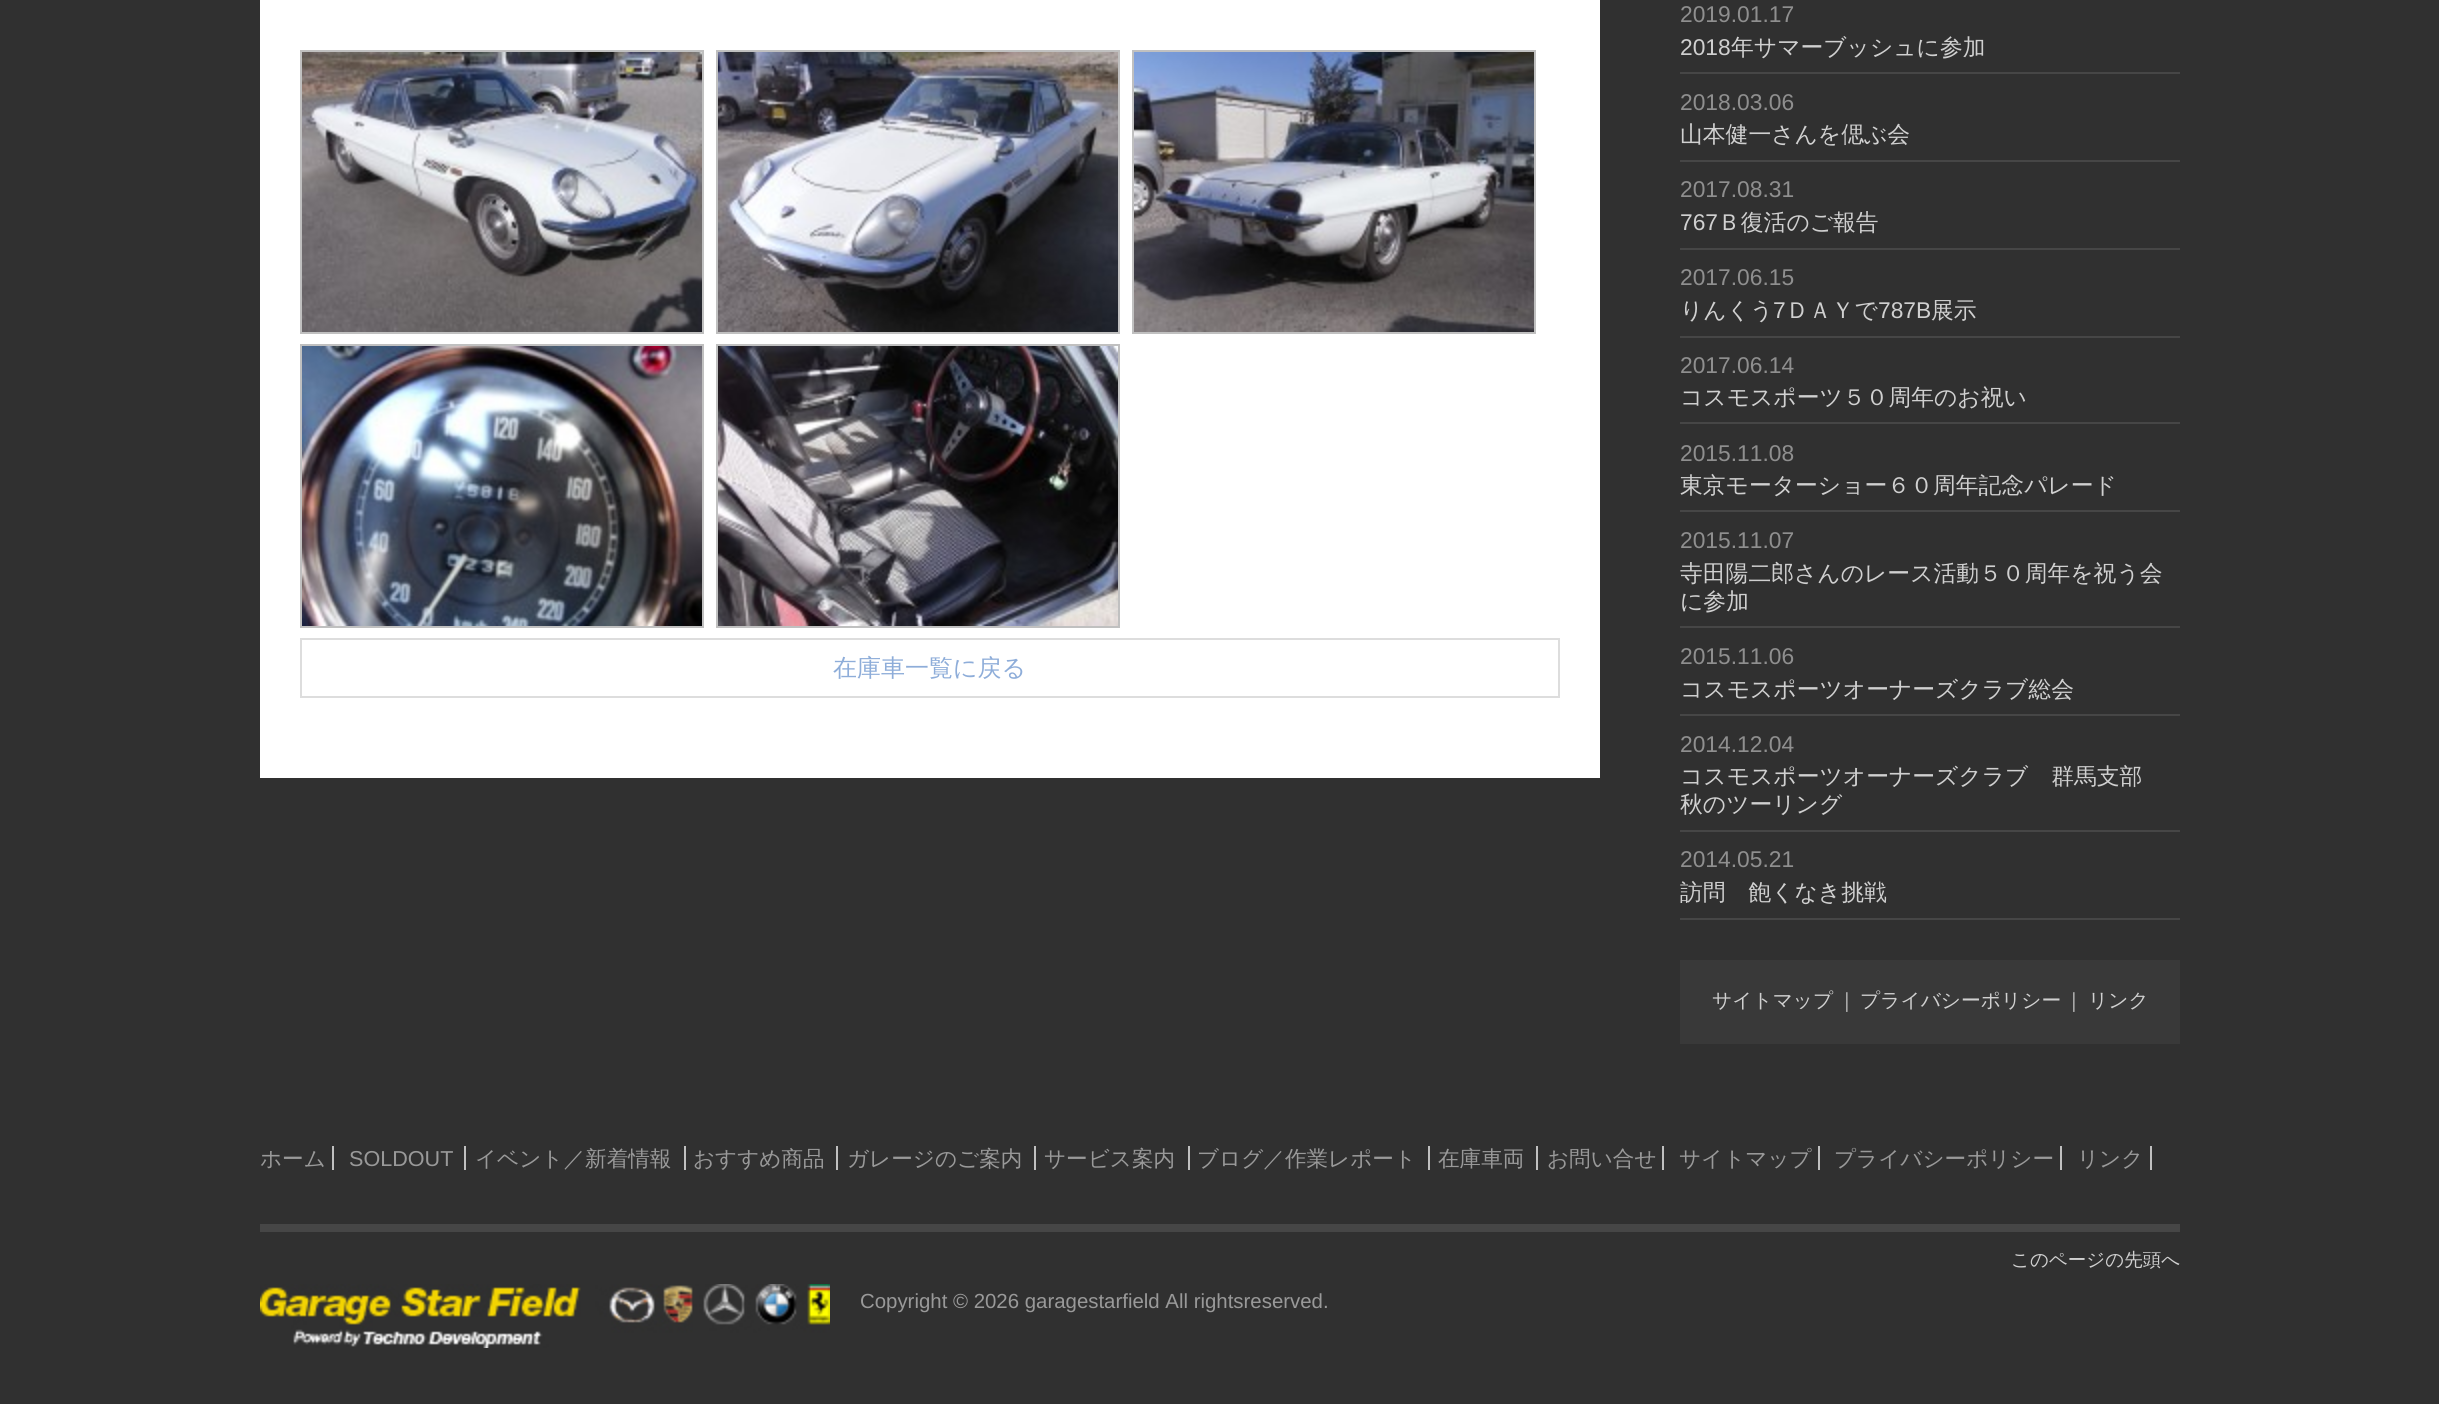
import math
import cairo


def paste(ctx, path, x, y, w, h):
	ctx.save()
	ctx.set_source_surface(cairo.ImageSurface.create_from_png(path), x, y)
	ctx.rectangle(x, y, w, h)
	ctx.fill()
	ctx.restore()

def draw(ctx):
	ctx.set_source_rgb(0.188, 0.188, 0.188)
	ctx.paint()
	ctx.set_source_rgb(1, 1, 1)
	ctx.rectangle(260, 0, 1340, 778)
	ctx.fill()
	ctx.rectangle(301, 51, 402, 282)
	ctx.set_source_rgb(0.753, 0.753, 0.753)
	ctx.stroke()
	ctx.rectangle(717, 51, 402, 282)
	ctx.stroke()
	ctx.rectangle(1133, 51, 402, 282)
	ctx.stroke()
	paste(ctx, 'media/1.png', 302, 52, 400, 280)
	paste(ctx, 'media/2.png', 718, 52, 400, 280)
	paste(ctx, 'media/3.png', 1134, 52, 400, 280)
	ctx.rectangle(301, 345, 402, 282)
	ctx.stroke()
	ctx.rectangle(717, 345, 402, 282)
	ctx.stroke()
	paste(ctx, 'media/4.png', 302, 346, 400, 280)
	paste(ctx, 'media/5.png', 718, 346, 400, 280)
	ctx.rectangle(301, 639, 1258, 58)
	ctx.set_source_rgb(0.867, 0.867, 0.867)
	ctx.stroke()
	ctx.select_font_face('WenQuanYi Zen Hei Medium')
	ctx.set_font_size(24)
	ctx.set_source_rgb(0.557, 0.678, 0.851)
	ctx.move_to(833, 676)
	ctx.show_text('在庫車一覧に戻る')
	ctx.select_font_face('Liberation Sans')
	ctx.set_font_size(22.8)
	ctx.set_source_rgb(0.561, 0.561, 0.561)
	ctx.move_to(1680, 22)
	ctx.show_text('2019.01.17')
	ctx.set_source_rgb(0.275, 0.275, 0.275)
	ctx.rectangle(1680, 72, 500, 2)
	ctx.fill()
	ctx.set_source_rgb(0.816, 0.816, 0.816)
	ctx.move_to(1680, 55)
	ctx.show_text('2018')
	ctx.select_font_face('WenQuanYi Zen Hei Medium')
	ctx.move_to(1731, 55)
	ctx.show_text('年サマーブッシュに参加')
	ctx.select_font_face('Liberation Sans')
	ctx.set_source_rgb(0.561, 0.561, 0.561)
	ctx.move_to(1680, 110)
	ctx.show_text('2018.03.06')
	ctx.set_source_rgb(0.275, 0.275, 0.275)
	ctx.rectangle(1680, 160, 500, 2)
	ctx.fill()
	ctx.select_font_face('WenQuanYi Zen Hei Medium')
	ctx.set_source_rgb(0.816, 0.816, 0.816)
	ctx.move_to(1680, 142)
	ctx.show_text('山本健一さんを偲ぶ会')
	ctx.select_font_face('Liberation Sans')
	ctx.set_source_rgb(0.561, 0.561, 0.561)
	ctx.move_to(1680, 197)
	ctx.show_text('2017.08.31')
	ctx.set_source_rgb(0.275, 0.275, 0.275)
	ctx.rectangle(1680, 248, 500, 2)
	ctx.fill()
	ctx.set_source_rgb(0.816, 0.816, 0.816)
	ctx.move_to(1680, 230)
	ctx.show_text('767')
	ctx.select_font_face('WenQuanYi Zen Hei Medium')
	ctx.move_to(1718, 230)
	ctx.show_text('Ｂ復活のご報告')
	ctx.select_font_face('Liberation Sans')
	ctx.set_source_rgb(0.561, 0.561, 0.561)
	ctx.move_to(1680, 285)
	ctx.show_text('2017.06.15')
	ctx.set_source_rgb(0.275, 0.275, 0.275)
	ctx.rectangle(1680, 336, 500, 2)
	ctx.fill()
	ctx.select_font_face('WenQuanYi Zen Hei Medium')
	ctx.set_source_rgb(0.816, 0.816, 0.816)
	ctx.move_to(1680, 318)
	ctx.show_text('りんくう')
	ctx.select_font_face('Liberation Sans')
	ctx.move_to(1773, 318)
	ctx.show_text('7')
	ctx.select_font_face('WenQuanYi Zen Hei Medium')
	ctx.move_to(1786, 318)
	ctx.show_text('ＤＡＹで')
	ctx.select_font_face('Liberation Sans')
	ctx.move_to(1878, 318)
	ctx.show_text('787B')
	ctx.select_font_face('WenQuanYi Zen Hei Medium')
	ctx.move_to(1931, 318)
	ctx.show_text('展示')
	ctx.select_font_face('Liberation Sans')
	ctx.set_source_rgb(0.561, 0.561, 0.561)
	ctx.move_to(1680, 373)
	ctx.show_text('2017.06.14')
	ctx.set_source_rgb(0.275, 0.275, 0.275)
	ctx.rectangle(1680, 422, 500, 2)
	ctx.fill()
	ctx.select_font_face('WenQuanYi Zen Hei Medium')
	ctx.set_source_rgb(0.816, 0.816, 0.816)
	ctx.move_to(1680, 405)
	ctx.show_text('コスモスポーツ５０周年のお祝い')
	ctx.select_font_face('Liberation Sans')
	ctx.set_source_rgb(0.561, 0.561, 0.561)
	ctx.move_to(1680, 461)
	ctx.show_text('2015.11.08')
	ctx.set_source_rgb(0.275, 0.275, 0.275)
	ctx.rectangle(1680, 510, 500, 2)
	ctx.fill()
	ctx.select_font_face('WenQuanYi Zen Hei Medium')
	ctx.set_source_rgb(0.816, 0.816, 0.816)
	ctx.move_to(1680, 493)
	ctx.show_text('東京モーターショー６０周年記念パレード')
	ctx.select_font_face('Liberation Sans')
	ctx.set_source_rgb(0.561, 0.561, 0.561)
	ctx.move_to(1680, 548)
	ctx.show_text('2015.11.07')
	ctx.set_source_rgb(0.275, 0.275, 0.275)
	ctx.rectangle(1680, 626, 500, 2)
	ctx.fill()
	ctx.select_font_face('WenQuanYi Zen Hei Medium')
	ctx.set_source_rgb(0.816, 0.816, 0.816)
	ctx.move_to(1680, 581)
	ctx.show_text('寺田陽二郎さんのレース活動５０周年を祝う会')
	ctx.move_to(1680, 609)
	ctx.show_text('に参加')
	ctx.select_font_face('Liberation Sans')
	ctx.set_source_rgb(0.561, 0.561, 0.561)
	ctx.move_to(1680, 664)
	ctx.show_text('2015.11.06')
	ctx.set_source_rgb(0.275, 0.275, 0.275)
	ctx.rectangle(1680, 714, 500, 2)
	ctx.fill()
	ctx.select_font_face('WenQuanYi Zen Hei Medium')
	ctx.set_source_rgb(0.816, 0.816, 0.816)
	ctx.move_to(1680, 697)
	ctx.show_text('コスモスポーツオーナーズクラブ総会')
	ctx.select_font_face('Liberation Sans')
	ctx.set_source_rgb(0.561, 0.561, 0.561)
	ctx.move_to(1680, 752)
	ctx.show_text('2014.12.04')
	ctx.set_source_rgb(0.275, 0.275, 0.275)
	ctx.rectangle(1680, 830, 500, 2)
	ctx.fill()
	ctx.select_font_face('WenQuanYi Zen Hei Medium')
	ctx.set_source_rgb(0.816, 0.816, 0.816)
	ctx.move_to(1680, 784)
	ctx.show_text('コスモスポーツオーナーズクラブ　群馬支部')
	ctx.move_to(1680, 812)
	ctx.show_text('秋のツーリング')
	ctx.select_font_face('Liberation Sans')
	ctx.set_source_rgb(0.561, 0.561, 0.561)
	ctx.move_to(1680, 867)
	ctx.show_text('2014.05.21')
	ctx.set_source_rgb(0.275, 0.275, 0.275)
	ctx.rectangle(1680, 918, 500, 2)
	ctx.fill()
	ctx.select_font_face('WenQuanYi Zen Hei Medium')
	ctx.set_source_rgb(0.816, 0.816, 0.816)
	ctx.move_to(1680, 900)
	ctx.show_text('訪問　飽くなき挑戦')
	ctx.set_source_rgb(0.224, 0.224, 0.224)
	ctx.rectangle(1680, 960, 500, 84)
	ctx.fill()
	ctx.set_font_size(19.75)
	ctx.set_source_rgb(0.816, 0.816, 0.816)
	for x, y, s in [
		(1712, 1007, 'サイトマップ'),
		(1837, 1007, '｜'),
		(1860, 1007, 'プライバシーポリシー'),
		(2064, 1007, '｜'),
		(2088, 1007, 'リンク'),
	]:
		ctx.move_to(x, y)
		ctx.show_text(s)
	ctx.set_source_rgb(0.275, 0.275, 0.275)
	ctx.rectangle(260, 1224, 1920, 8)
	ctx.fill()
	ctx.set_font_size(21.6)
	ctx.set_source_rgb(0.6, 0.6, 0.6)
	ctx.move_to(260, 1166)
	ctx.show_text('ホーム')
	ctx.set_source_rgb(0.753, 0.753, 0.753)
	ctx.rectangle(332, 1146, 2, 24)
	ctx.fill()
	ctx.select_font_face('Liberation Sans')
	ctx.set_source_rgb(0.6, 0.6, 0.6)
	ctx.move_to(349, 1166)
	ctx.show_text('SOLDOUT')
	ctx.set_source_rgb(0.753, 0.753, 0.753)
	ctx.rectangle(464, 1146, 2, 24)
	ctx.fill()
	ctx.select_font_face('WenQuanYi Zen Hei Medium')
	ctx.set_source_rgb(0.6, 0.6, 0.6)
	ctx.move_to(475, 1166)
	ctx.show_text('イベント／新着情報')
	ctx.set_source_rgb(0.753, 0.753, 0.753)
	ctx.rectangle(684, 1146, 2, 24)
	ctx.fill()
	ctx.set_source_rgb(0.6, 0.6, 0.6)
	ctx.move_to(693, 1166)
	ctx.show_text('おすすめ商品')
	ctx.set_source_rgb(0.753, 0.753, 0.753)
	ctx.rectangle(836, 1146, 2, 24)
	ctx.fill()
	ctx.set_source_rgb(0.6, 0.6, 0.6)
	ctx.move_to(847, 1166)
	ctx.show_text('ガレージのご案内')
	ctx.set_source_rgb(0.753, 0.753, 0.753)
	ctx.rectangle(1034, 1146, 2, 24)
	ctx.fill()
	ctx.set_source_rgb(0.6, 0.6, 0.6)
	ctx.move_to(1044, 1166)
	ctx.show_text('サービス案内')
	ctx.set_source_rgb(0.753, 0.753, 0.753)
	ctx.rectangle(1188, 1146, 2, 24)
	ctx.fill()
	ctx.set_source_rgb(0.6, 0.6, 0.6)
	ctx.move_to(1197, 1166)
	ctx.show_text('ブログ／作業レポート')
	ctx.set_source_rgb(0.753, 0.753, 0.753)
	ctx.rectangle(1428, 1146, 2, 24)
	ctx.fill()
	ctx.set_source_rgb(0.6, 0.6, 0.6)
	ctx.move_to(1438, 1166)
	ctx.show_text('在庫車両')
	ctx.set_source_rgb(0.753, 0.753, 0.753)
	ctx.rectangle(1536, 1146, 2, 24)
	ctx.fill()
	ctx.set_source_rgb(0.6, 0.6, 0.6)
	ctx.move_to(1547, 1166)
	ctx.show_text('お問い合せ')
	ctx.set_source_rgb(0.753, 0.753, 0.753)
	ctx.rectangle(1662, 1146, 2, 24)
	ctx.fill()
	ctx.set_source_rgb(0.6, 0.6, 0.6)
	ctx.move_to(1679, 1166)
	ctx.show_text('サイトマップ')
	ctx.set_source_rgb(0.753, 0.753, 0.753)
	ctx.rectangle(1818, 1146, 2, 24)
	ctx.fill()
	ctx.set_source_rgb(0.6, 0.6, 0.6)
	ctx.move_to(1834, 1166)
	ctx.show_text('プライバシーポリシー')
	ctx.set_source_rgb(0.753, 0.753, 0.753)
	ctx.rectangle(2060, 1146, 2, 24)
	ctx.fill()
	ctx.set_source_rgb(0.6, 0.6, 0.6)
	ctx.move_to(2077, 1166)
	ctx.show_text('リンク')
	ctx.set_source_rgb(0.753, 0.753, 0.753)
	ctx.rectangle(2150, 1146, 2, 24)
	ctx.fill()
	ctx.set_font_size(18.5)
	ctx.set_source_rgb(0.816, 0.816, 0.816)
	ctx.move_to(2011, 1266)
	ctx.show_text('このページの先頭へ')
	paste(ctx, 'media/6.png', 260, 1284, 570, 64)
	ctx.select_font_face('Liberation Sans')
	ctx.set_font_size(20.4)
	ctx.set_source_rgb(0.6, 0.6, 0.6)
	ctx.move_to(860, 1308)
	ctx.show_text('Copyright © 2026 garagestarfield All rightsreserved.')


surface = cairo.ImageSurface(cairo.FORMAT_RGB24, 2439, 1404)
ctx = cairo.Context(surface)
options = cairo.FontOptions()
options.set_hint_metrics(cairo.HINT_METRICS_OFF)
options.set_hint_style(cairo.HINT_STYLE_NONE)
ctx.set_font_options(options)
ctx.set_miter_limit(4)
draw(ctx)
surface.write_to_png('image.png')
